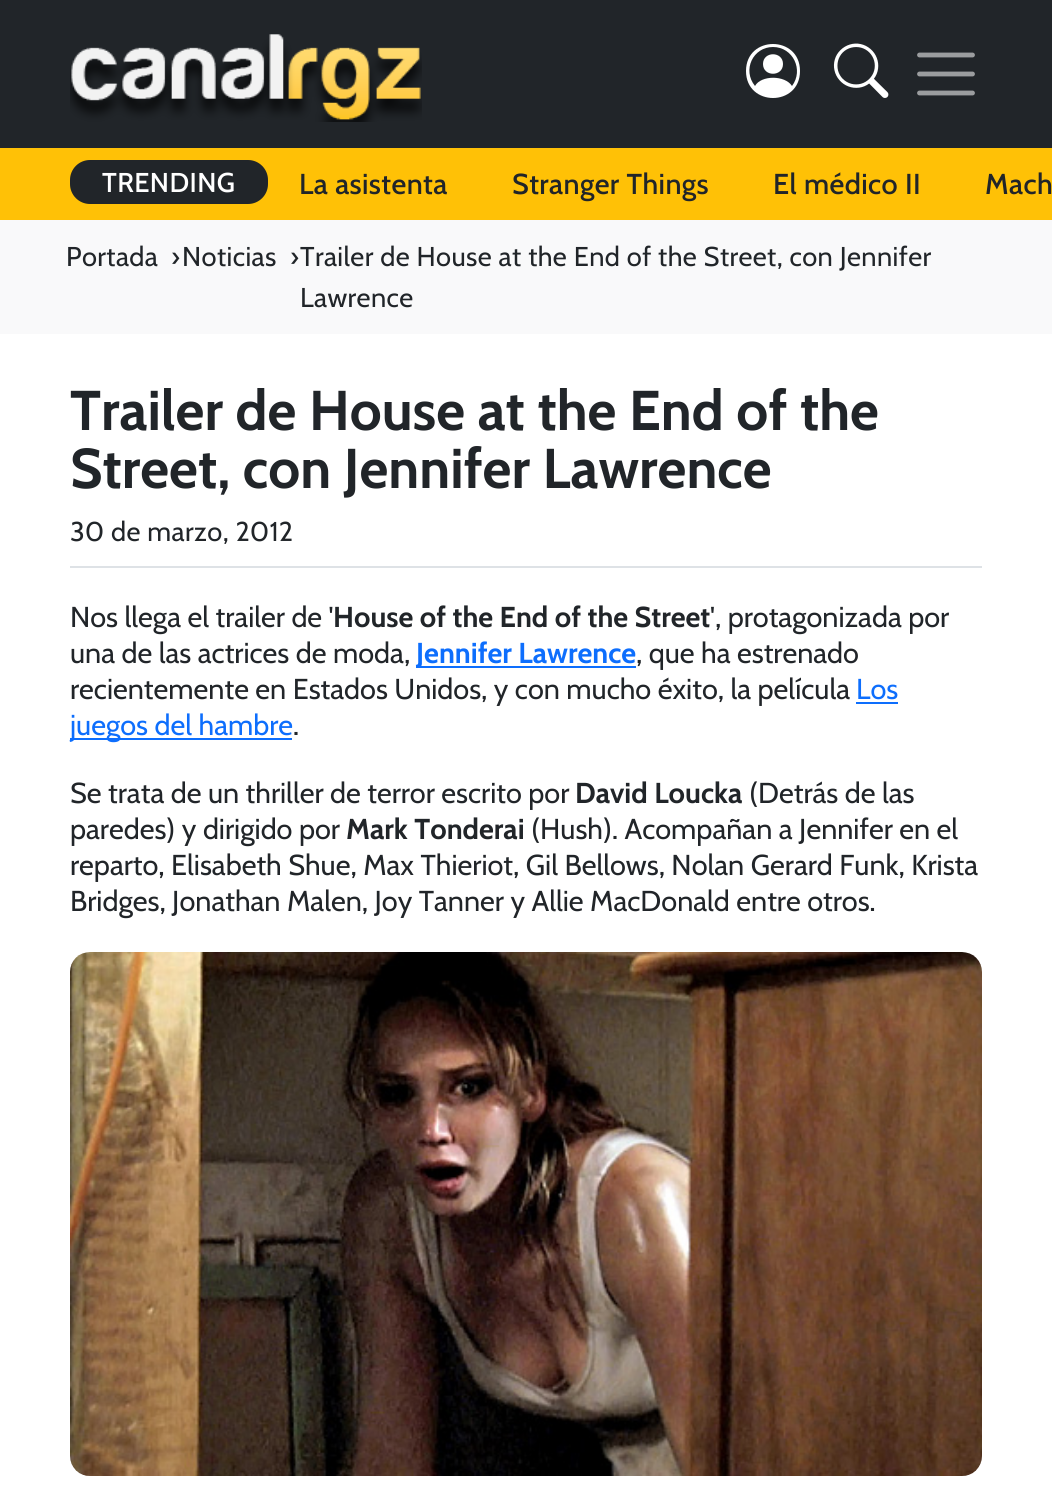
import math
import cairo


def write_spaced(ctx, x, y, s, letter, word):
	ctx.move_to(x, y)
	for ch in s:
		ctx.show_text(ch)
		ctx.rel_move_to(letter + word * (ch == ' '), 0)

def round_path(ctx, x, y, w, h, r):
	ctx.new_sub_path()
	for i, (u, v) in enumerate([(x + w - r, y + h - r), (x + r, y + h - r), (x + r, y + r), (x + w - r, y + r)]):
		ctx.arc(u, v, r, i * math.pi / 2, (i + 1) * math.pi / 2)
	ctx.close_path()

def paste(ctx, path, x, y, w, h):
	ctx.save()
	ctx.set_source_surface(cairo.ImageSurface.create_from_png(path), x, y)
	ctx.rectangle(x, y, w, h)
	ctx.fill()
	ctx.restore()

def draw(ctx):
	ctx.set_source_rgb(1, 1, 1)
	ctx.paint()
	ctx.set_source_rgb(0.129, 0.145, 0.161)
	ctx.rectangle(0, 0, 1052, 148)
	ctx.fill()
	paste(ctx, 'media/1.png', 70, 34, 352, 88)
	ctx.set_source_rgb(1, 1, 1)
	ctx.new_path()
	ctx.move_to(783, 64)
	ctx.curve_to(783, 77, 763, 77, 763, 64)
	ctx.curve_to(763, 51, 783, 51, 783, 64)
	ctx.close_path()
	ctx.move_to(746, 71)
	ctx.curve_to(746, 35, 800, 35, 800, 71)
	ctx.curve_to(800, 107, 746, 107, 746, 71)
	ctx.close_path()
	ctx.move_to(773, 47)
	ctx.curve_to(753, 47, 742, 70, 755, 86)
	ctx.curve_to(761, 75, 785, 75, 792, 86)
	ctx.curve_to(804, 70, 793, 47, 773, 47)
	ctx.close_path()
	ctx.fill()
	paste(ctx, 'media/2.png', 833, 43, 56, 55)
	ctx.new_path()
	ctx.move_to(919.5, 55)
	ctx.line_to(972.5, 55)
	ctx.move_to(919.5, 74)
	ctx.line_to(972.5, 74)
	ctx.move_to(919.5, 93)
	ctx.line_to(972.5, 93)
	ctx.set_source_rgb(0.608, 0.616, 0.624)
	ctx.set_line_width(4.8)
	ctx.set_line_cap(cairo.LINE_CAP_ROUND)
	ctx.stroke()
	ctx.set_source_rgb(1, 0.757, 0.027)
	ctx.rectangle(0, 148, 1052, 72)
	ctx.fill()
	ctx.set_source_rgb(0.129, 0.145, 0.161)
	round_path(ctx, 70, 160, 198, 44, 20)
	ctx.fill()
	ctx.select_font_face('Cabin Medium')
	ctx.set_font_size(27.2)
	ctx.set_source_rgb(1, 1, 1)
	write_spaced(ctx, 102, 192, 'TRENDING', 0.4, 0)
	ctx.set_font_size(28.8)
	ctx.set_source_rgb(0.129, 0.145, 0.161)
	for x, y, s in [
		(299, 194, 'La asistenta'),
		(512, 194, 'Stranger Things'),
		(773, 194, 'El médico II'),
		(985, 194, 'Mach'),
	]:
		write_spaced(ctx, x, y, s, 0.4, 0)
	ctx.set_source_rgb(0.973, 0.976, 0.98)
	ctx.rectangle(0, 220, 1052, 114)
	ctx.fill()
	ctx.select_font_face('Cabin')
	ctx.set_font_size(27.2)
	ctx.set_source_rgb(0.129, 0.145, 0.161)
	for x, y, s in [
		(66, 266, 'Portada'),
		(171, 266, '›'),
		(182, 266, 'Noticias'),
		(290, 266, '›'),
		(300, 266, 'Trailer de House at the End of the Street, con Jennifer'),
		(300, 307, 'Lawrence'),
	]:
		write_spaced(ctx, x, y, s, 0.4, 0)
	ctx.select_font_face('Cabin', cairo.FONT_SLANT_NORMAL, cairo.FONT_WEIGHT_BOLD)
	ctx.set_font_size(56)
	ctx.move_to(70, 430)
	ctx.show_text('Trailer de House at the End of the')
	ctx.move_to(70, 488)
	ctx.show_text('Street, con Jennifer Lawrence')
	ctx.set_source_rgb(0.871, 0.886, 0.902)
	ctx.rectangle(70, 566, 912, 2)
	ctx.fill()
	ctx.select_font_face('Cabin')
	ctx.set_font_size(27.2)
	ctx.set_source_rgb(0.129, 0.145, 0.161)
	write_spaced(ctx, 70, 541, '30 de marzo, 2012', 0.4, 0)
	ctx.set_font_size(28.8)
	ctx.move_to(70, 627)
	ctx.show_text('Nos llega el trailer de \'')
	ctx.select_font_face('Cabin', cairo.FONT_SLANT_NORMAL, cairo.FONT_WEIGHT_BOLD)
	ctx.move_to(333, 627)
	ctx.show_text('House of the End of the Street')
	ctx.select_font_face('Cabin')
	ctx.move_to(710, 627)
	ctx.show_text('\', protagonizada por')
	ctx.move_to(70, 663)
	ctx.show_text('una de las actrices de moda,')
	ctx.set_source_rgb(0.051, 0.431, 0.992)
	ctx.rectangle(416, 666, 220, 2)
	ctx.fill()
	ctx.select_font_face('Cabin', cairo.FONT_SLANT_NORMAL, cairo.FONT_WEIGHT_BOLD)
	ctx.move_to(416, 663)
	ctx.show_text('Jennifer Lawrence')
	ctx.select_font_face('Cabin')
	ctx.set_source_rgb(0.129, 0.145, 0.161)
	ctx.move_to(636, 663)
	ctx.show_text(', que ha estrenado')
	ctx.move_to(70, 699)
	ctx.show_text('recientemente en Estados Unidos, y con mucho éxito, la película')
	ctx.set_source_rgb(0.051, 0.431, 0.992)
	ctx.move_to(856, 699)
	ctx.show_text('Los')
	ctx.rectangle(856, 702, 42, 2)
	ctx.fill()
	ctx.rectangle(70, 738, 222, 2)
	ctx.fill()
	ctx.move_to(70, 735)
	ctx.show_text('juegos del hambre')
	ctx.set_source_rgb(0.129, 0.145, 0.161)
	ctx.move_to(293, 735)
	ctx.show_text('.')
	ctx.move_to(70, 803)
	ctx.show_text('Se trata de un thriller de terror escrito por')
	ctx.select_font_face('Cabin', cairo.FONT_SLANT_NORMAL, cairo.FONT_WEIGHT_BOLD)
	ctx.move_to(575, 803)
	ctx.show_text('David Loucka')
	ctx.select_font_face('Cabin')
	ctx.move_to(749, 803)
	ctx.show_text('(Detrás de las')
	ctx.move_to(70, 839)
	ctx.show_text('paredes) y dirigido por')
	ctx.select_font_face('Cabin', cairo.FONT_SLANT_NORMAL, cairo.FONT_WEIGHT_BOLD)
	ctx.move_to(346, 839)
	ctx.show_text('Mark Tonderai')
	ctx.select_font_face('Cabin')
	for x, y, s in [
		(531, 839, '(Hush). Acompañan a Jennifer en el'),
		(70, 875, 'reparto, Elisabeth Shue, Max Thieriot, Gil Bellows, Nolan Gerard Funk, Krista'),
		(70, 911, 'Bridges, Jonathan Malen, Joy Tanner y Allie MacDonald entre otros.'),
	]:
		ctx.move_to(x, y)
		ctx.show_text(s)
	paste(ctx, 'media/3.png', 70, 952, 912, 524)


surface = cairo.ImageSurface(cairo.FORMAT_RGB24, 1052, 1512)
ctx = cairo.Context(surface)
options = cairo.FontOptions()
options.set_hint_metrics(cairo.HINT_METRICS_OFF)
options.set_hint_style(cairo.HINT_STYLE_NONE)
ctx.set_font_options(options)
ctx.set_miter_limit(4)
draw(ctx)
surface.write_to_png('image.png')
